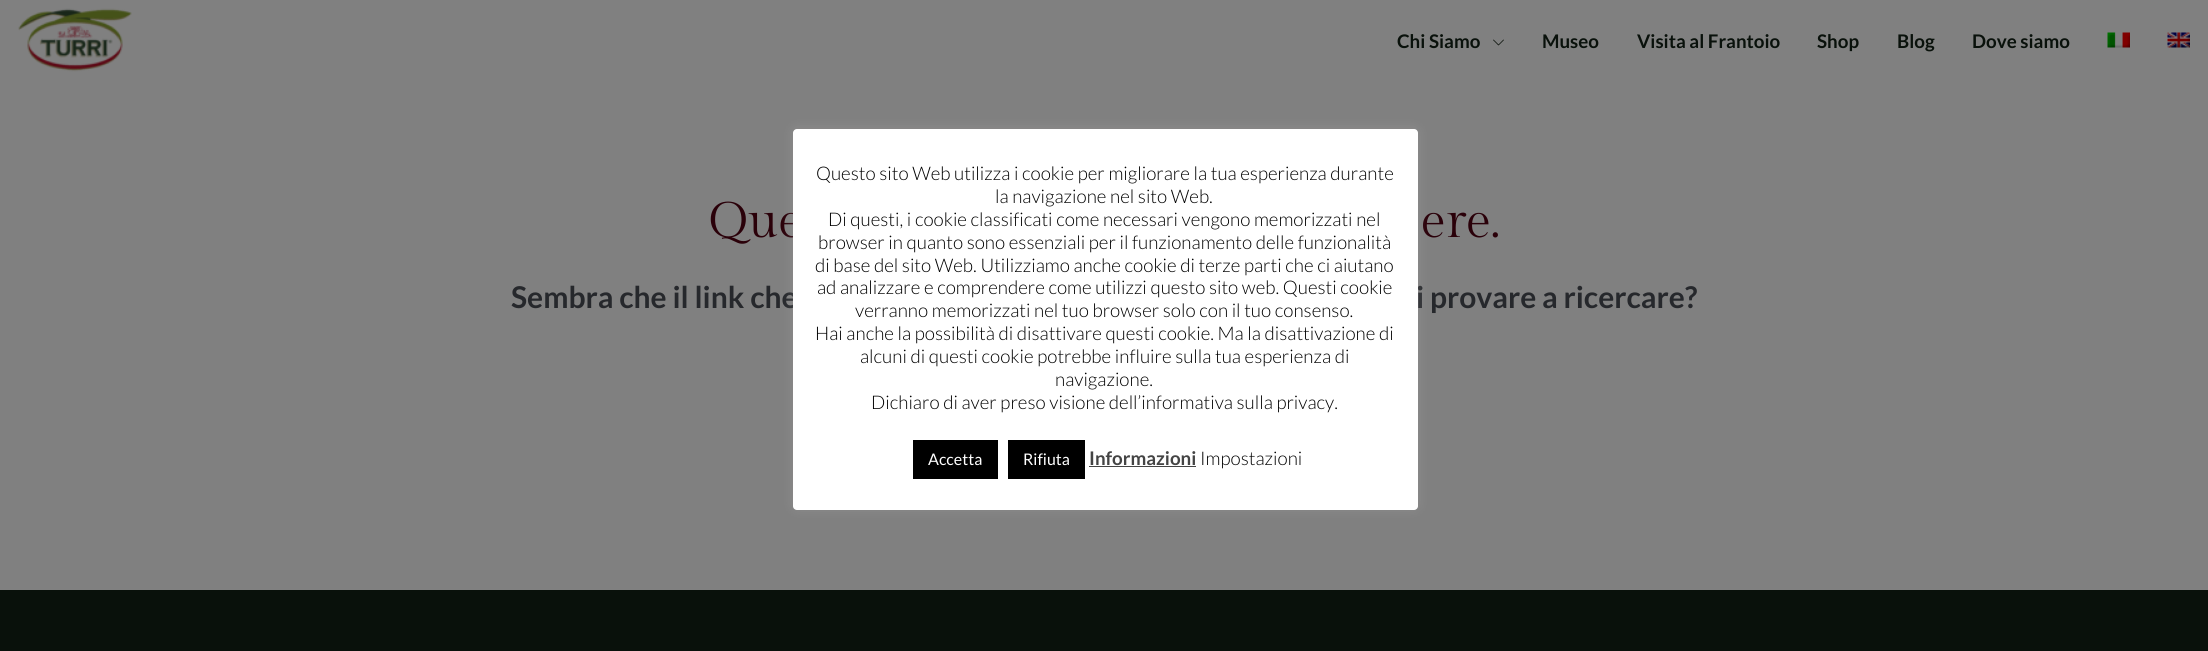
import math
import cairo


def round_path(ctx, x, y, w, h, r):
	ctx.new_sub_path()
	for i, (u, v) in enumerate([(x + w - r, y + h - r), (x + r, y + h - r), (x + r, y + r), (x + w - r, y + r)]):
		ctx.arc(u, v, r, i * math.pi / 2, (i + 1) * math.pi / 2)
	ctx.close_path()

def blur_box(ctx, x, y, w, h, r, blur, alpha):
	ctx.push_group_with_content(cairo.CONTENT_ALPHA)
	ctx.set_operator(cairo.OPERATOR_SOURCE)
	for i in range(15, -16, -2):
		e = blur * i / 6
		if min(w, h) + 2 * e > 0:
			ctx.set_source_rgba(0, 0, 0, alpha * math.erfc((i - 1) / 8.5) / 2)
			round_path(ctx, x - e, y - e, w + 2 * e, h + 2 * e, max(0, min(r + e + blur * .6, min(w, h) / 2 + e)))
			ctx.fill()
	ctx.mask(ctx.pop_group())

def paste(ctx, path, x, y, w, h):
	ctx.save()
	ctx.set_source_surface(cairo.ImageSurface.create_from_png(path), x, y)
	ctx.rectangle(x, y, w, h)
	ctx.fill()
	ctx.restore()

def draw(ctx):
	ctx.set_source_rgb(0.502, 0.502, 0.502)
	ctx.paint()
	paste(ctx, 'media/1.png', 18, 8, 114, 64)
	ctx.select_font_face('Lato', cairo.FONT_SLANT_NORMAL, cairo.FONT_WEIGHT_BOLD)
	ctx.set_font_size(18.75)
	ctx.set_source_rgb(0.039, 0.067, 0.043)
	ctx.move_to(1397, 48)
	ctx.show_text('Chi Siamo')
	paste(ctx, 'media/2.png', 1493, 39, 11, 7)
	for x, y, s in [
		(1542, 48, 'Museo'),
		(1637, 48, 'Visita al Frantoio'),
		(1817, 48, 'Shop'),
		(1897, 48, 'Blog'),
		(1972, 48, 'Dove siamo'),
	]:
		ctx.move_to(x, y)
		ctx.show_text(s)
	paste(ctx, 'media/3.png', 2107, 32, 23, 16)
	paste(ctx, 'media/4.png', 2167, 32, 23, 16)
	ctx.select_font_face('Gilda Display')
	ctx.set_font_size(50)
	ctx.set_source_rgb(0.165, 0, 0.039)
	ctx.move_to(709, 237)
	ctx.show_text('Que')
	ctx.move_to(1421, 237)
	ctx.show_text('ere.')
	ctx.select_font_face('Lato', cairo.FONT_SLANT_NORMAL, cairo.FONT_WEIGHT_BOLD)
	ctx.set_font_size(30)
	ctx.set_source_rgb(0.149, 0.157, 0.173)
	ctx.move_to(511, 308)
	ctx.show_text('Sembra che il link che')
	ctx.move_to(1416, 308)
	ctx.show_text('i provare a ricercare?')
	ctx.set_source_rgb(0.039, 0.067, 0.043)
	ctx.rectangle(0, 590, 2208, 61)
	ctx.fill()
	ctx.set_source_rgb(0.675, 0.671, 0.671)
	blur_box(ctx, 793, 128, 625, 381, 4, 6, 0.3)
	ctx.set_source_rgb(1, 1, 1)
	round_path(ctx, 793, 129, 625, 381, 4)
	ctx.fill()
	ctx.select_font_face('Lato Light')
	ctx.set_font_size(18.75)
	ctx.set_source_rgb(0, 0, 0)
	for x, y, s in [
		(816, 180, 'Questo sito Web utilizza i cookie per migliorare la tua esperienza durante'),
		(995, 203, 'la navigazione nel sito Web.'),
		(828, 226, 'Di questi, i cookie classificati come necessari vengono memorizzati nel'),
		(818, 249, 'browser in quanto sono essenziali per il funzionamento delle funzionalità'),
		(815, 272, 'di base del sito Web. Utilizziamo anche cookie di terze parti che ci aiutano'),
		(817, 294, 'ad analizzare e comprendere come utilizzi questo sito web. Questi cookie'),
		(855, 317, 'verranno memorizzati nel tuo browser solo con il tuo consenso.'),
		(815, 340, 'Hai anche la possibilità di disattivare questi cookie. Ma la disattivazione di'),
		(860, 363, 'alcuni di questi cookie potrebbe influire sulla tua esperienza di'),
		(1055, 386, 'navigazione.'),
		(871, 409, 'Dichiaro di aver preso visione dell’informativa sulla privacy.'),
	]:
		ctx.move_to(x, y)
		ctx.show_text(s)
	ctx.rectangle(913, 440, 85, 39)
	ctx.fill()
	ctx.select_font_face('Lato')
	ctx.set_font_size(16)
	ctx.set_source_rgb(1, 1, 1)
	ctx.move_to(928, 465)
	ctx.show_text('Accetta')
	ctx.set_source_rgb(0, 0, 0)
	ctx.rectangle(1008, 440, 77, 39)
	ctx.fill()
	ctx.set_source_rgb(1, 1, 1)
	ctx.move_to(1023, 465)
	ctx.show_text('Rifiuta')
	ctx.select_font_face('Lato', cairo.FONT_SLANT_NORMAL, cairo.FONT_WEIGHT_BOLD)
	ctx.set_font_size(18.75)
	ctx.set_source_rgb(0.267, 0.267, 0.267)
	ctx.move_to(1089, 465)
	ctx.show_text('Informazioni')
	ctx.rectangle(1089, 466, 107, 1)
	ctx.fill()
	ctx.select_font_face('Lato Light')
	ctx.set_source_rgb(0, 0, 0)
	ctx.move_to(1200, 465)
	ctx.show_text('Impostazioni')


surface = cairo.ImageSurface(cairo.FORMAT_RGB24, 2208, 651)
ctx = cairo.Context(surface)
options = cairo.FontOptions()
options.set_hint_metrics(cairo.HINT_METRICS_OFF)
options.set_hint_style(cairo.HINT_STYLE_NONE)
ctx.set_font_options(options)
ctx.set_miter_limit(4)
draw(ctx)
surface.write_to_png('image.png')
